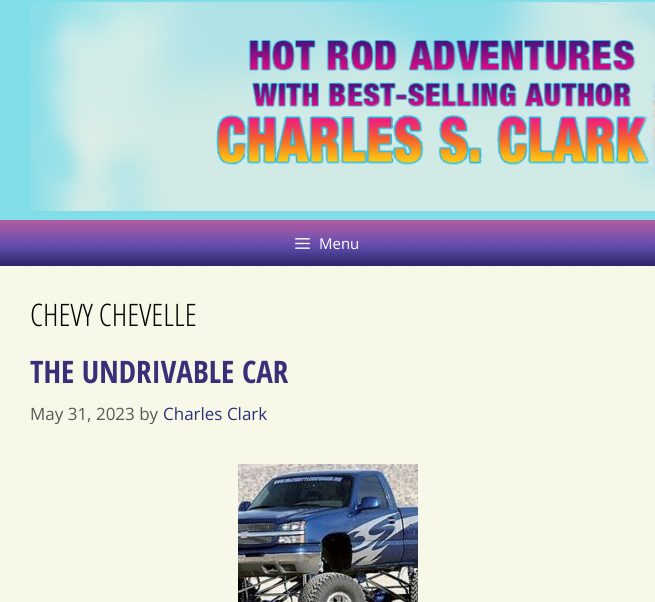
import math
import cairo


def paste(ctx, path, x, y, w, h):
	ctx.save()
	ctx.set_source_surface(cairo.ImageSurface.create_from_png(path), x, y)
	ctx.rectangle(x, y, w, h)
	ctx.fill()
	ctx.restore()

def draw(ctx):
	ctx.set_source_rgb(0.965, 0.969, 0.91)
	ctx.paint()
	ctx.set_source_rgb(0.506, 0.867, 0.91)
	ctx.rectangle(0, 0, 655, 220)
	ctx.fill()
	paste(ctx, 'media/1.png', 30, 2, 625, 209)
	paste(ctx, 'media/2.png', 0, 220, 655, 46)
	paste(ctx, 'media/3.png', 295, 238, 15, 11)
	ctx.select_font_face('Open Sans')
	ctx.set_font_size(15)
	ctx.set_source_rgb(1, 1, 1)
	ctx.move_to(319, 249)
	ctx.show_text('Menu')
	ctx.select_font_face('Open Sans Condensed Light')
	ctx.set_font_size(31)
	ctx.set_source_rgb(0.012, 0.012, 0.012)
	ctx.move_to(30, 326)
	ctx.show_text('CHEVY CHEVELLE')
	ctx.select_font_face('Open Sans Condensed', cairo.FONT_SLANT_NORMAL, cairo.FONT_WEIGHT_BOLD)
	ctx.set_source_rgb(0.227, 0.188, 0.478)
	ctx.move_to(30, 383)
	ctx.show_text('THE UNDRIVABLE CAR')
	ctx.select_font_face('Open Sans')
	ctx.set_font_size(17)
	ctx.set_source_rgb(0.349, 0.349, 0.349)
	ctx.move_to(30, 420)
	ctx.show_text('May 31, 2023 by')
	ctx.set_source_rgb(0.165, 0.188, 0.478)
	ctx.move_to(163, 420)
	ctx.show_text('Charles Clark')
	paste(ctx, 'media/4.png', 238, 464, 180, 138)


surface = cairo.ImageSurface(cairo.FORMAT_RGB24, 655, 602)
ctx = cairo.Context(surface)
options = cairo.FontOptions()
options.set_hint_metrics(cairo.HINT_METRICS_OFF)
options.set_hint_style(cairo.HINT_STYLE_NONE)
ctx.set_font_options(options)
ctx.set_miter_limit(4)
draw(ctx)
surface.write_to_png('image.png')
